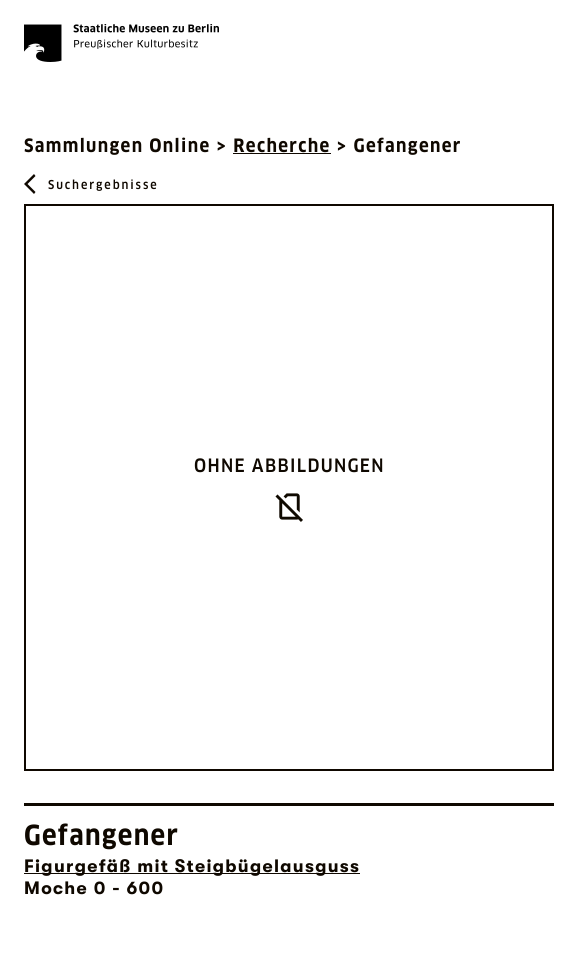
import math
import cairo


def write_spaced(ctx, x, y, s, letter, word):
	ctx.move_to(x, y)
	for ch in s:
		ctx.show_text(ch)
		ctx.rel_move_to(letter + word * (ch == ' '), 0)

def paste(ctx, path, x, y, w, h):
	ctx.save()
	ctx.set_source_surface(cairo.ImageSurface.create_from_png(path), x, y)
	ctx.rectangle(x, y, w, h)
	ctx.fill()
	ctx.restore()

def draw(ctx):
	ctx.set_source_rgb(1, 1, 1)
	ctx.paint()
	paste(ctx, 'media/1.png', 24, 24, 195, 38)
	ctx.select_font_face('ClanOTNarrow', cairo.FONT_SLANT_NORMAL, cairo.FONT_WEIGHT_BOLD)
	ctx.set_font_size(18)
	ctx.set_source_rgb(0.059, 0.035, 0)
	write_spaced(ctx, 24, 152, 'Sammlungen Online > Recherche > Gefangener', 1.35, 0)
	ctx.rectangle(233, 153, 98, 1)
	ctx.fill()
	ctx.new_path()
	ctx.move_to(35.5, 176)
	ctx.line_to(34, 174)
	ctx.line_to(24, 184)
	ctx.line_to(34, 194)
	ctx.line_to(35.5, 192)
	ctx.line_to(27.5, 184)
	ctx.close_path()
	ctx.fill()
	ctx.select_font_face('ClanOTNarrow Medium')
	ctx.set_font_size(12)
	write_spaced(ctx, 48, 189, 'Suchergebnisse', 1.9, 0)
	ctx.rectangle(25, 205, 528, 565)
	ctx.stroke()
	ctx.set_font_size(18)
	write_spaced(ctx, 194, 472, 'OHNE ABBILDUNGEN', 1.3, 0)
	paste(ctx, 'media/2.png', 275, 493, 28, 29)
	ctx.rectangle(24, 803, 530, 3)
	ctx.fill()
	ctx.select_font_face('ClanOTNarrow', cairo.FONT_SLANT_NORMAL, cairo.FONT_WEIGHT_BOLD)
	ctx.set_font_size(27)
	write_spaced(ctx, 24, 845, 'Gefangener', 1.3, 0)
	ctx.rectangle(24, 873, 336, 1)
	ctx.fill()
	ctx.select_font_face('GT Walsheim', cairo.FONT_SLANT_NORMAL, cairo.FONT_WEIGHT_BOLD)
	ctx.set_font_size(18)
	write_spaced(ctx, 24, 872, 'Figurgefäß mit Steigbügelausguss', 1.3, 0)
	write_spaced(ctx, 24, 894, 'Moche 0 - 600', 1.3, 0)


surface = cairo.ImageSurface(cairo.FORMAT_RGB24, 578, 957)
ctx = cairo.Context(surface)
options = cairo.FontOptions()
options.set_hint_metrics(cairo.HINT_METRICS_OFF)
options.set_hint_style(cairo.HINT_STYLE_NONE)
ctx.set_font_options(options)
ctx.set_miter_limit(4)
draw(ctx)
surface.write_to_png('image.png')
